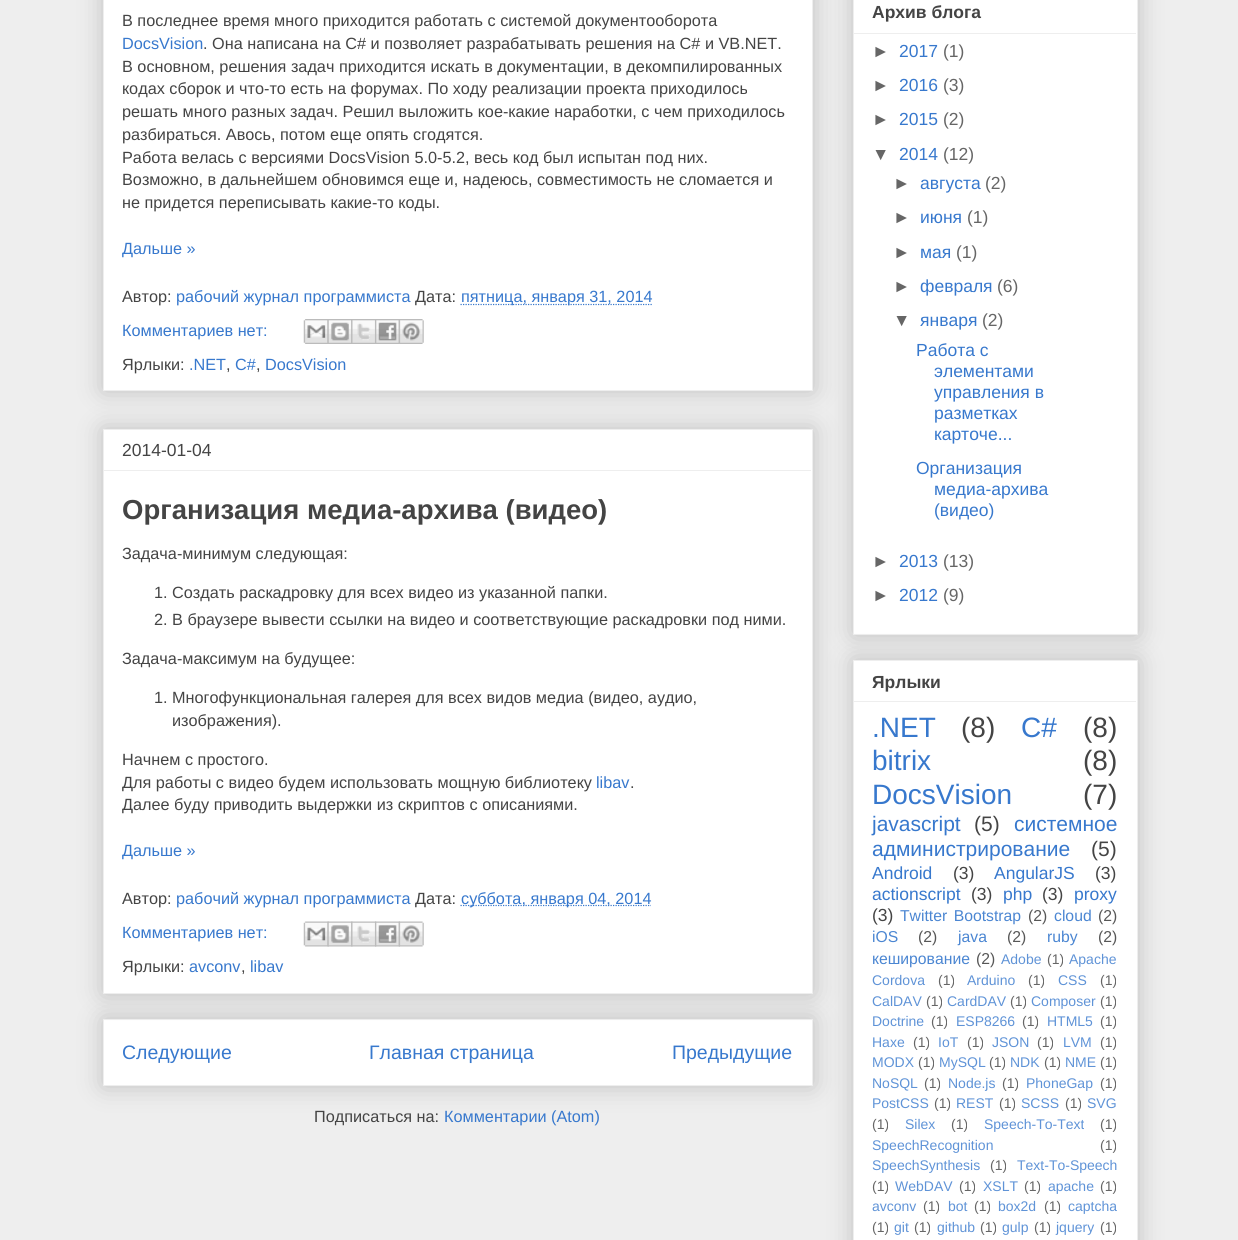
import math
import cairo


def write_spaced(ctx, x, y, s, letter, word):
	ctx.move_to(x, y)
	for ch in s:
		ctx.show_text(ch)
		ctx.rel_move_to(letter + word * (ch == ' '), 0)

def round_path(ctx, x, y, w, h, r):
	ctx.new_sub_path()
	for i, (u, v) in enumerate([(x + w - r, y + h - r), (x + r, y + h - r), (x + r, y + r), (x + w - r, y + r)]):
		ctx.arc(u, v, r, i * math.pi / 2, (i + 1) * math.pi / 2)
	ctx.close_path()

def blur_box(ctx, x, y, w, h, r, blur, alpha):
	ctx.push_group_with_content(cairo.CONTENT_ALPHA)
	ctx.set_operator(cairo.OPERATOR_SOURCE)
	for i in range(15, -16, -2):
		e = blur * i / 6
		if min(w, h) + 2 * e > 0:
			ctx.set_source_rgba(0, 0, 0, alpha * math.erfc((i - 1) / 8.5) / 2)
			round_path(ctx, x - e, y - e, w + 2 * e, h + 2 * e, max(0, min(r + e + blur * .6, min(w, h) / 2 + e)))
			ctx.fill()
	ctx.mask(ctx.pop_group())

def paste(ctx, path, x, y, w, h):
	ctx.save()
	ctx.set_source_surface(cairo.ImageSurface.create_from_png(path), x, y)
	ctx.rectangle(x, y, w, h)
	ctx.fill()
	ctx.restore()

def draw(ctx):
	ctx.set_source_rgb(0.933, 0.933, 0.933)
	ctx.paint()
	ctx.set_source_rgb(0, 0, 0)
	blur_box(ctx, 103, -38, 710, 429, 0, 12.5, 0.2)
	ctx.set_source_rgb(1, 1, 1)
	ctx.rectangle(103.5, -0.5, 709, 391)
	ctx.fill_preserve()
	ctx.set_source_rgb(0.933, 0.933, 0.933)
	ctx.set_line_width(1)
	ctx.stroke()
	ctx.select_font_face('Liberation Sans')
	ctx.set_font_size(16.25)
	ctx.set_source_rgb(0.267, 0.267, 0.267)
	ctx.move_to(122, 26)
	ctx.show_text('В последнее время много приходится работать с системой документооборота')
	ctx.set_source_rgb(0.216, 0.471, 0.804)
	ctx.move_to(122, 49)
	ctx.show_text('DocsVision')
	ctx.set_source_rgb(0.267, 0.267, 0.267)
	for x, y, s in [
		(203, 49, '. Она написана на C# и позволяет разрабатывать решения на C# и VB.NET.'),
		(122, 72, 'В основном, решения задач приходится искать в документации, в декомпилированных'),
		(122, 94, 'кодах сборок и что-то есть на форумах. По ходу реализации проекта приходилось'),
		(122, 117, 'решать много разных задач. Решил выложить кое-какие наработки, с чем приходилось'),
		(122, 140, 'разбираться. Авось, потом еще опять сгодятся.'),
		(122, 163, 'Работа велась с версиями DocsVision 5.0-5.2, весь код был испытан под них.'),
		(122, 185, 'Возможно, в дальнейшем обновимся еще и, надеюсь, совместимость не сломается и'),
		(122, 208, 'не придется переписывать какие-то коды.'),
	]:
		ctx.move_to(x, y)
		ctx.show_text(s)
	ctx.set_source_rgb(0.216, 0.471, 0.804)
	ctx.move_to(122, 254)
	ctx.show_text('Дальше »')
	ctx.set_source_rgb(0.267, 0.267, 0.267)
	ctx.move_to(122, 302)
	ctx.show_text('Автор:')
	ctx.set_source_rgb(0.216, 0.471, 0.804)
	ctx.move_to(176, 302)
	ctx.show_text('рабочий журнал программиста')
	ctx.set_source_rgb(0.267, 0.267, 0.267)
	ctx.move_to(415, 302)
	ctx.show_text('Дата:')
	ctx.new_path()
	ctx.move_to(460.5, 304.5)
	ctx.line_to(652, 304.5)
	ctx.set_source_rgb(0.216, 0.471, 0.804)
	ctx.set_line_width(1.2)
	ctx.set_dash([1.25, 1.25])
	ctx.stroke()
	ctx.move_to(461, 302)
	ctx.show_text('пятница, января 31, 2014')
	ctx.move_to(122, 336)
	ctx.show_text('Комментариев нет:')
	paste(ctx, 'media/1.png', 303, 319, 25, 25)
	paste(ctx, 'media/2.png', 327, 319, 25, 25)
	paste(ctx, 'media/3.png', 351, 319, 24, 25)
	paste(ctx, 'media/4.png', 375, 319, 24, 25)
	paste(ctx, 'media/5.png', 398, 319, 26, 25)
	ctx.set_source_rgb(0.267, 0.267, 0.267)
	ctx.move_to(122, 370)
	ctx.show_text('Ярлыки:')
	ctx.set_source_rgb(0.216, 0.471, 0.804)
	ctx.move_to(189, 370)
	ctx.show_text('.NET')
	ctx.set_source_rgb(0.267, 0.267, 0.267)
	ctx.move_to(226, 370)
	ctx.show_text(',')
	ctx.set_source_rgb(0.216, 0.471, 0.804)
	ctx.move_to(235, 370)
	ctx.show_text('C#')
	ctx.set_source_rgb(0.267, 0.267, 0.267)
	ctx.move_to(256, 370)
	ctx.show_text(',')
	ctx.set_source_rgb(0.216, 0.471, 0.804)
	ctx.move_to(265, 370)
	ctx.show_text('DocsVision')
	ctx.set_source_rgb(0, 0, 0)
	blur_box(ctx, 103, 1019, 710, 67, 0, 12.5, 0.2)
	ctx.set_source_rgb(1, 1, 1)
	ctx.rectangle(103.5, 1019.5, 709, 66)
	ctx.fill_preserve()
	ctx.set_source_rgb(0.933, 0.933, 0.933)
	ctx.set_line_width(1)
	ctx.set_dash([])
	ctx.stroke()
	ctx.set_source_rgb(0, 0, 0)
	blur_box(ctx, 103, 429, 710, 565, 0, 12.5, 0.2)
	ctx.set_source_rgb(1, 1, 1)
	ctx.rectangle(103.5, 429.5, 709, 564)
	ctx.fill_preserve()
	ctx.set_source_rgb(0.933, 0.933, 0.933)
	ctx.stroke()
	ctx.set_font_size(17.5)
	ctx.set_source_rgb(0.267, 0.267, 0.267)
	ctx.move_to(122, 456)
	ctx.show_text('2014-01-04')
	ctx.set_source_rgb(0.933, 0.933, 0.933)
	ctx.rectangle(104, 470, 707, 1)
	ctx.fill()
	ctx.select_font_face('Liberation Sans', cairo.FONT_SLANT_NORMAL, cairo.FONT_WEIGHT_BOLD)
	ctx.set_font_size(27.5)
	ctx.set_source_rgb(0.267, 0.267, 0.267)
	ctx.move_to(122, 519)
	ctx.show_text('Организация медиа-архива (видео)')
	ctx.select_font_face('Liberation Sans')
	ctx.set_font_size(16.25)
	for x, y, s in [
		(122, 559, 'Задача-минимум следующая:'),
		(154, 598, '1. Создать раскадровку для всех видео из указанной папки.'),
		(154, 625, '2. В браузере вывести ссылки на видео и соответствующие раскадровки под ними.'),
		(122, 664, 'Задача-максимум на будущее:'),
		(154, 703, '1. Многофункциональная галерея для всех видов медиа (видео, аудио,'),
		(172, 726, 'изображения).'),
		(122, 765, 'Начнем с простого.'),
		(122, 788, 'Для работы с видео будем использовать мощную библиотеку'),
	]:
		ctx.move_to(x, y)
		ctx.show_text(s)
	ctx.set_source_rgb(0.216, 0.471, 0.804)
	ctx.move_to(596, 788)
	ctx.show_text('libav')
	ctx.set_source_rgb(0.267, 0.267, 0.267)
	ctx.move_to(630, 788)
	ctx.show_text('.')
	ctx.move_to(122, 810)
	ctx.show_text('Далее буду приводить выдержки из скриптов с описаниями.')
	ctx.set_source_rgb(0.216, 0.471, 0.804)
	ctx.move_to(122, 856)
	ctx.show_text('Дальше »')
	ctx.set_source_rgb(0.267, 0.267, 0.267)
	ctx.move_to(122, 904)
	ctx.show_text('Автор:')
	ctx.set_source_rgb(0.216, 0.471, 0.804)
	ctx.move_to(176, 904)
	ctx.show_text('рабочий журнал программиста')
	ctx.set_source_rgb(0.267, 0.267, 0.267)
	ctx.move_to(415, 904)
	ctx.show_text('Дата:')
	ctx.new_path()
	ctx.move_to(460.5, 905.5)
	ctx.line_to(651, 905.5)
	ctx.set_source_rgb(0.216, 0.471, 0.804)
	ctx.set_line_width(1.2)
	ctx.set_dash([1.25, 1.25])
	ctx.stroke()
	ctx.move_to(461, 904)
	ctx.show_text('суббота, января 04, 2014')
	ctx.move_to(122, 938)
	ctx.show_text('Комментариев нет:')
	paste(ctx, 'media/6.png', 303, 921, 26, 26)
	paste(ctx, 'media/7.png', 327, 921, 26, 26)
	paste(ctx, 'media/8.png', 351, 921, 26, 26)
	paste(ctx, 'media/9.png', 375, 921, 25, 26)
	paste(ctx, 'media/10.png', 398, 921, 26, 26)
	ctx.set_source_rgb(0.267, 0.267, 0.267)
	ctx.move_to(122, 972)
	ctx.show_text('Ярлыки:')
	ctx.set_source_rgb(0.216, 0.471, 0.804)
	ctx.move_to(189, 972)
	ctx.show_text('avconv')
	ctx.set_source_rgb(0.267, 0.267, 0.267)
	ctx.move_to(241, 972)
	ctx.show_text(',')
	ctx.set_source_rgb(0.216, 0.471, 0.804)
	ctx.move_to(250, 972)
	ctx.show_text('libav')
	ctx.set_font_size(19.5)
	for x, y, s in [
		(122, 1059, 'Следующие'),
		(369, 1059, 'Главная страница'),
		(672, 1059, 'Предыдущие'),
	]:
		ctx.move_to(x, y)
		ctx.show_text(s)
	ctx.set_font_size(16.25)
	ctx.set_source_rgb(0.267, 0.267, 0.267)
	ctx.move_to(314, 1122)
	ctx.show_text('Подписаться на:')
	ctx.set_source_rgb(0.216, 0.471, 0.804)
	ctx.move_to(444, 1122)
	ctx.show_text('Комментарии (Atom)')
	ctx.set_source_rgb(0, 0, 0)
	blur_box(ctx, 853, -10, 285, 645, 0, 12.5, 0.2)
	ctx.set_source_rgb(1, 1, 1)
	ctx.rectangle(853.5, -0.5, 284, 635)
	ctx.fill_preserve()
	ctx.set_source_rgb(0.933, 0.933, 0.933)
	ctx.set_line_width(1)
	ctx.set_dash([])
	ctx.stroke()
	ctx.select_font_face('Liberation Sans', cairo.FONT_SLANT_NORMAL, cairo.FONT_WEIGHT_BOLD)
	ctx.set_font_size(17.5)
	ctx.set_source_rgb(0.267, 0.267, 0.267)
	ctx.move_to(872, 18)
	ctx.show_text('Архив блога')
	ctx.set_source_rgb(0.933, 0.933, 0.933)
	ctx.rectangle(854, 33, 282, 1)
	ctx.fill()
	ctx.select_font_face('Liberation Sans')
	ctx.set_source_rgb(0.4, 0.4, 0.4)
	ctx.move_to(872, 57)
	ctx.show_text('►')
	ctx.set_source_rgb(0.216, 0.471, 0.804)
	ctx.move_to(899, 57)
	ctx.show_text('2017')
	ctx.set_source_rgb(0.4, 0.4, 0.4)
	ctx.move_to(943, 57)
	ctx.show_text('(1)')
	ctx.move_to(872, 91)
	ctx.show_text('►')
	ctx.set_source_rgb(0.216, 0.471, 0.804)
	ctx.move_to(899, 91)
	ctx.show_text('2016')
	ctx.set_source_rgb(0.4, 0.4, 0.4)
	ctx.move_to(943, 91)
	ctx.show_text('(3)')
	ctx.move_to(872, 125)
	ctx.show_text('►')
	ctx.set_source_rgb(0.216, 0.471, 0.804)
	ctx.move_to(899, 125)
	ctx.show_text('2015')
	ctx.set_source_rgb(0.4, 0.4, 0.4)
	ctx.move_to(943, 125)
	ctx.show_text('(2)')
	ctx.move_to(872, 160)
	ctx.show_text('▼')
	ctx.set_source_rgb(0.216, 0.471, 0.804)
	ctx.move_to(899, 160)
	ctx.show_text('2014')
	ctx.set_source_rgb(0.4, 0.4, 0.4)
	ctx.move_to(943, 160)
	ctx.show_text('(12)')
	ctx.move_to(893, 189)
	ctx.show_text('►')
	ctx.set_source_rgb(0.216, 0.471, 0.804)
	ctx.move_to(920, 189)
	ctx.show_text('августа')
	ctx.set_source_rgb(0.4, 0.4, 0.4)
	ctx.move_to(985, 189)
	ctx.show_text('(2)')
	ctx.move_to(893, 223)
	ctx.show_text('►')
	ctx.set_source_rgb(0.216, 0.471, 0.804)
	ctx.move_to(920, 223)
	ctx.show_text('июня')
	ctx.set_source_rgb(0.4, 0.4, 0.4)
	ctx.move_to(967, 223)
	ctx.show_text('(1)')
	ctx.move_to(893, 258)
	ctx.show_text('►')
	ctx.set_source_rgb(0.216, 0.471, 0.804)
	ctx.move_to(920, 258)
	ctx.show_text('мая')
	ctx.set_source_rgb(0.4, 0.4, 0.4)
	ctx.move_to(956, 258)
	ctx.show_text('(1)')
	ctx.move_to(893, 292)
	ctx.show_text('►')
	ctx.set_source_rgb(0.216, 0.471, 0.804)
	ctx.move_to(920, 292)
	ctx.show_text('февраля')
	ctx.set_source_rgb(0.4, 0.4, 0.4)
	ctx.move_to(997, 292)
	ctx.show_text('(6)')
	ctx.move_to(893, 326)
	ctx.show_text('▼')
	ctx.set_source_rgb(0.216, 0.471, 0.804)
	ctx.move_to(920, 326)
	ctx.show_text('января')
	ctx.set_source_rgb(0.4, 0.4, 0.4)
	ctx.move_to(982, 326)
	ctx.show_text('(2)')
	ctx.set_source_rgb(0.216, 0.471, 0.804)
	for x, y, s in [
		(916, 356, 'Работа с'),
		(934, 377, 'элементами'),
		(934, 398, 'управления в'),
		(934, 419, 'разметках'),
		(934, 440, 'карточе...'),
		(916, 474, 'Организация'),
		(934, 495, 'медиа-архива'),
		(934, 516, '(видео)'),
	]:
		ctx.move_to(x, y)
		ctx.show_text(s)
	ctx.set_source_rgb(0.4, 0.4, 0.4)
	ctx.move_to(872, 567)
	ctx.show_text('►')
	ctx.set_source_rgb(0.216, 0.471, 0.804)
	ctx.move_to(899, 567)
	ctx.show_text('2013')
	ctx.set_source_rgb(0.4, 0.4, 0.4)
	ctx.move_to(943, 567)
	ctx.show_text('(13)')
	ctx.move_to(872, 601)
	ctx.show_text('►')
	ctx.set_source_rgb(0.216, 0.471, 0.804)
	ctx.move_to(899, 601)
	ctx.show_text('2012')
	ctx.set_source_rgb(0.4, 0.4, 0.4)
	ctx.move_to(943, 601)
	ctx.show_text('(9)')
	ctx.set_source_rgb(0, 0, 0)
	blur_box(ctx, 853, 660, 285, 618, 0, 12.5, 0.2)
	ctx.set_source_rgb(1, 1, 1)
	ctx.rectangle(853.5, 660.5, 284, 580)
	ctx.fill_preserve()
	ctx.set_source_rgb(0.933, 0.933, 0.933)
	ctx.stroke()
	ctx.select_font_face('Liberation Sans', cairo.FONT_SLANT_NORMAL, cairo.FONT_WEIGHT_BOLD)
	ctx.set_source_rgb(0.267, 0.267, 0.267)
	ctx.move_to(872, 688)
	ctx.show_text('Ярлыки')
	ctx.set_source_rgb(0.933, 0.933, 0.933)
	ctx.rectangle(854, 701, 282, 1)
	ctx.fill()
	ctx.select_font_face('Liberation Sans')
	ctx.set_font_size(28)
	ctx.set_source_rgb(0.216, 0.471, 0.804)
	ctx.move_to(872, 737)
	ctx.show_text('.NET')
	ctx.set_source_rgb(0.267, 0.267, 0.267)
	ctx.move_to(961, 737)
	ctx.show_text('(8)')
	ctx.set_source_rgb(0.216, 0.471, 0.804)
	ctx.move_to(1021, 737)
	ctx.show_text('C#')
	ctx.set_source_rgb(0.267, 0.267, 0.267)
	ctx.move_to(1083, 737)
	ctx.show_text('(8)')
	ctx.set_source_rgb(0.216, 0.471, 0.804)
	ctx.move_to(872, 770)
	ctx.show_text('bitrix')
	ctx.set_source_rgb(0.267, 0.267, 0.267)
	ctx.move_to(1083, 770)
	ctx.show_text('(8)')
	ctx.set_source_rgb(0.216, 0.471, 0.804)
	ctx.move_to(872, 804)
	ctx.show_text('DocsVision')
	ctx.set_source_rgb(0.267, 0.267, 0.267)
	ctx.move_to(1083, 804)
	ctx.show_text('(7)')
	ctx.set_font_size(21)
	ctx.set_source_rgb(0.216, 0.471, 0.804)
	ctx.move_to(872, 831)
	ctx.show_text('javascript')
	ctx.set_source_rgb(0.267, 0.267, 0.267)
	ctx.move_to(974, 831)
	ctx.show_text('(5)')
	ctx.set_source_rgb(0.216, 0.471, 0.804)
	ctx.move_to(1014, 831)
	ctx.show_text('системное')
	ctx.move_to(872, 856)
	ctx.show_text('администрирование')
	ctx.set_source_rgb(0.267, 0.267, 0.267)
	ctx.move_to(1091, 856)
	ctx.show_text('(5)')
	ctx.set_font_size(17.5)
	ctx.set_source_rgb(0.216, 0.471, 0.804)
	ctx.move_to(872, 879)
	ctx.show_text('Android')
	ctx.set_source_rgb(0.267, 0.267, 0.267)
	ctx.move_to(953, 879)
	ctx.show_text('(3)')
	ctx.set_source_rgb(0.216, 0.471, 0.804)
	ctx.move_to(994, 879)
	ctx.show_text('AngularJS')
	ctx.set_source_rgb(0.267, 0.267, 0.267)
	ctx.move_to(1095, 879)
	ctx.show_text('(3)')
	ctx.set_source_rgb(0.216, 0.471, 0.804)
	ctx.move_to(872, 900)
	ctx.show_text('actionscript')
	ctx.set_source_rgb(0.267, 0.267, 0.267)
	ctx.move_to(971, 900)
	ctx.show_text('(3)')
	ctx.set_source_rgb(0.216, 0.471, 0.804)
	ctx.move_to(1003, 900)
	ctx.show_text('php')
	ctx.set_source_rgb(0.267, 0.267, 0.267)
	ctx.move_to(1042, 900)
	ctx.show_text('(3)')
	ctx.set_source_rgb(0.216, 0.471, 0.804)
	ctx.move_to(1074, 900)
	ctx.show_text('proxy')
	ctx.set_source_rgb(0.267, 0.267, 0.267)
	ctx.move_to(872, 921)
	ctx.show_text('(3)')
	ctx.set_font_size(15.75)
	ctx.set_source_rgb(0.294, 0.525, 0.824)
	write_spaced(ctx, 900, 921, 'Twitter Bootstrap', 0, 2)
	ctx.set_source_rgb(0.341, 0.341, 0.341)
	ctx.move_to(1028, 921)
	ctx.show_text('(2)')
	ctx.set_source_rgb(0.294, 0.525, 0.824)
	ctx.move_to(1054, 921)
	ctx.show_text('cloud')
	ctx.set_source_rgb(0.341, 0.341, 0.341)
	ctx.move_to(1098, 921)
	ctx.show_text('(2)')
	ctx.set_source_rgb(0.294, 0.525, 0.824)
	ctx.move_to(872, 942)
	ctx.show_text('iOS')
	ctx.set_source_rgb(0.341, 0.341, 0.341)
	ctx.move_to(918, 942)
	ctx.show_text('(2)')
	ctx.set_source_rgb(0.294, 0.525, 0.824)
	ctx.move_to(958, 942)
	ctx.show_text('java')
	ctx.set_source_rgb(0.341, 0.341, 0.341)
	ctx.move_to(1007, 942)
	ctx.show_text('(2)')
	ctx.set_source_rgb(0.294, 0.525, 0.824)
	ctx.move_to(1047, 942)
	ctx.show_text('ruby')
	ctx.set_source_rgb(0.341, 0.341, 0.341)
	ctx.move_to(1098, 942)
	ctx.show_text('(2)')
	ctx.set_source_rgb(0.294, 0.525, 0.824)
	ctx.move_to(872, 964)
	ctx.show_text('кеширование')
	ctx.set_source_rgb(0.341, 0.341, 0.341)
	ctx.move_to(976, 964)
	ctx.show_text('(2)')
	ctx.set_font_size(14)
	ctx.set_source_rgb(0.373, 0.576, 0.843)
	ctx.move_to(1001, 964)
	ctx.show_text('Adobe')
	ctx.set_source_rgb(0.4, 0.4, 0.4)
	ctx.move_to(1047, 964)
	ctx.show_text('(1)')
	ctx.set_source_rgb(0.373, 0.576, 0.843)
	ctx.move_to(1069, 964)
	ctx.show_text('Apache')
	ctx.move_to(872, 985)
	ctx.show_text('Cordova')
	ctx.set_source_rgb(0.4, 0.4, 0.4)
	ctx.move_to(938, 985)
	ctx.show_text('(1)')
	ctx.set_source_rgb(0.373, 0.576, 0.843)
	ctx.move_to(967, 985)
	ctx.show_text('Arduino')
	ctx.set_source_rgb(0.4, 0.4, 0.4)
	ctx.move_to(1028, 985)
	ctx.show_text('(1)')
	ctx.set_source_rgb(0.373, 0.576, 0.843)
	ctx.move_to(1058, 985)
	ctx.show_text('CSS')
	ctx.set_source_rgb(0.4, 0.4, 0.4)
	ctx.move_to(1100, 985)
	ctx.show_text('(1)')
	ctx.set_source_rgb(0.373, 0.576, 0.843)
	ctx.move_to(872, 1006)
	ctx.show_text('CalDAV')
	ctx.set_source_rgb(0.4, 0.4, 0.4)
	ctx.move_to(926, 1006)
	ctx.show_text('(1)')
	ctx.set_source_rgb(0.373, 0.576, 0.843)
	ctx.move_to(947, 1006)
	ctx.show_text('CardDAV')
	ctx.set_source_rgb(0.4, 0.4, 0.4)
	ctx.move_to(1010, 1006)
	ctx.show_text('(1)')
	ctx.set_source_rgb(0.373, 0.576, 0.843)
	ctx.move_to(1031, 1006)
	ctx.show_text('Composer')
	ctx.set_source_rgb(0.4, 0.4, 0.4)
	ctx.move_to(1100, 1006)
	ctx.show_text('(1)')
	ctx.set_source_rgb(0.373, 0.576, 0.843)
	ctx.move_to(872, 1026)
	ctx.show_text('Doctrine')
	ctx.set_source_rgb(0.4, 0.4, 0.4)
	ctx.move_to(931, 1026)
	ctx.show_text('(1)')
	ctx.set_source_rgb(0.373, 0.576, 0.843)
	ctx.move_to(956, 1026)
	ctx.show_text('ESP8266')
	ctx.set_source_rgb(0.4, 0.4, 0.4)
	ctx.move_to(1022, 1026)
	ctx.show_text('(1)')
	ctx.set_source_rgb(0.373, 0.576, 0.843)
	ctx.move_to(1047, 1026)
	ctx.show_text('HTML5')
	ctx.set_source_rgb(0.4, 0.4, 0.4)
	ctx.move_to(1100, 1026)
	ctx.show_text('(1)')
	ctx.set_source_rgb(0.373, 0.576, 0.843)
	ctx.move_to(872, 1047)
	ctx.show_text('Haxe')
	ctx.set_source_rgb(0.4, 0.4, 0.4)
	ctx.move_to(913, 1047)
	ctx.show_text('(1)')
	ctx.set_source_rgb(0.373, 0.576, 0.843)
	ctx.move_to(938, 1047)
	ctx.show_text('IoT')
	ctx.set_source_rgb(0.4, 0.4, 0.4)
	ctx.move_to(967, 1047)
	ctx.show_text('(1)')
	ctx.set_source_rgb(0.373, 0.576, 0.843)
	ctx.move_to(992, 1047)
	ctx.show_text('JSON')
	ctx.set_source_rgb(0.4, 0.4, 0.4)
	ctx.move_to(1037, 1047)
	ctx.show_text('(1)')
	ctx.set_source_rgb(0.373, 0.576, 0.843)
	ctx.move_to(1063, 1047)
	ctx.show_text('LVM')
	ctx.set_source_rgb(0.4, 0.4, 0.4)
	ctx.move_to(1100, 1047)
	ctx.show_text('(1)')
	ctx.set_source_rgb(0.373, 0.576, 0.843)
	ctx.move_to(872, 1067)
	ctx.show_text('MODX')
	ctx.set_source_rgb(0.4, 0.4, 0.4)
	ctx.move_to(918, 1067)
	ctx.show_text('(1)')
	ctx.set_source_rgb(0.373, 0.576, 0.843)
	ctx.move_to(939, 1067)
	ctx.show_text('MySQL')
	ctx.set_source_rgb(0.4, 0.4, 0.4)
	ctx.move_to(989, 1067)
	ctx.show_text('(1)')
	ctx.set_source_rgb(0.373, 0.576, 0.843)
	ctx.move_to(1010, 1067)
	ctx.show_text('NDK')
	ctx.set_source_rgb(0.4, 0.4, 0.4)
	ctx.move_to(1044, 1067)
	ctx.show_text('(1)')
	ctx.set_source_rgb(0.373, 0.576, 0.843)
	ctx.move_to(1065, 1067)
	ctx.show_text('NME')
	ctx.set_source_rgb(0.4, 0.4, 0.4)
	ctx.move_to(1100, 1067)
	ctx.show_text('(1)')
	ctx.set_source_rgb(0.373, 0.576, 0.843)
	ctx.move_to(872, 1088)
	ctx.show_text('NoSQL')
	ctx.set_source_rgb(0.4, 0.4, 0.4)
	ctx.move_to(924, 1088)
	ctx.show_text('(1)')
	ctx.set_source_rgb(0.373, 0.576, 0.843)
	ctx.move_to(948, 1088)
	ctx.show_text('Node.js')
	ctx.set_source_rgb(0.4, 0.4, 0.4)
	ctx.move_to(1002, 1088)
	ctx.show_text('(1)')
	ctx.set_source_rgb(0.373, 0.576, 0.843)
	ctx.move_to(1026, 1088)
	ctx.show_text('PhoneGap')
	ctx.set_source_rgb(0.4, 0.4, 0.4)
	ctx.move_to(1100, 1088)
	ctx.show_text('(1)')
	ctx.set_source_rgb(0.373, 0.576, 0.843)
	ctx.move_to(872, 1108)
	ctx.show_text('PostCSS')
	ctx.set_source_rgb(0.4, 0.4, 0.4)
	ctx.move_to(934, 1108)
	ctx.show_text('(1)')
	ctx.set_source_rgb(0.373, 0.576, 0.843)
	ctx.move_to(956, 1108)
	ctx.show_text('REST')
	ctx.set_source_rgb(0.4, 0.4, 0.4)
	ctx.move_to(999, 1108)
	ctx.show_text('(1)')
	ctx.set_source_rgb(0.373, 0.576, 0.843)
	ctx.move_to(1021, 1108)
	ctx.show_text('SCSS')
	ctx.set_source_rgb(0.4, 0.4, 0.4)
	ctx.move_to(1065, 1108)
	ctx.show_text('(1)')
	ctx.set_source_rgb(0.373, 0.576, 0.843)
	ctx.move_to(1087, 1108)
	ctx.show_text('SVG')
	ctx.set_source_rgb(0.4, 0.4, 0.4)
	ctx.move_to(872, 1129)
	ctx.show_text('(1)')
	ctx.set_source_rgb(0.373, 0.576, 0.843)
	ctx.move_to(905, 1129)
	ctx.show_text('Silex')
	ctx.set_source_rgb(0.4, 0.4, 0.4)
	ctx.move_to(951, 1129)
	ctx.show_text('(1)')
	ctx.set_source_rgb(0.373, 0.576, 0.843)
	ctx.move_to(984, 1129)
	ctx.show_text('Speech-To-Text')
	ctx.set_source_rgb(0.4, 0.4, 0.4)
	ctx.move_to(1100, 1129)
	ctx.show_text('(1)')
	ctx.set_source_rgb(0.373, 0.576, 0.843)
	ctx.move_to(872, 1150)
	ctx.show_text('SpeechRecognition')
	ctx.set_source_rgb(0.4, 0.4, 0.4)
	ctx.move_to(1100, 1150)
	ctx.show_text('(1)')
	ctx.set_source_rgb(0.373, 0.576, 0.843)
	ctx.move_to(872, 1170)
	ctx.show_text('SpeechSynthesis')
	ctx.set_source_rgb(0.4, 0.4, 0.4)
	ctx.move_to(990, 1170)
	ctx.show_text('(1)')
	ctx.set_source_rgb(0.373, 0.576, 0.843)
	ctx.move_to(1017, 1170)
	ctx.show_text('Text-To-Speech')
	ctx.set_source_rgb(0.4, 0.4, 0.4)
	ctx.move_to(872, 1191)
	ctx.show_text('(1)')
	ctx.set_source_rgb(0.373, 0.576, 0.843)
	ctx.move_to(895, 1191)
	ctx.show_text('WebDAV')
	ctx.set_source_rgb(0.4, 0.4, 0.4)
	ctx.move_to(959, 1191)
	ctx.show_text('(1)')
	ctx.set_source_rgb(0.373, 0.576, 0.843)
	ctx.move_to(983, 1191)
	ctx.show_text('XSLT')
	ctx.set_source_rgb(0.4, 0.4, 0.4)
	ctx.move_to(1024, 1191)
	ctx.show_text('(1)')
	ctx.set_source_rgb(0.373, 0.576, 0.843)
	ctx.move_to(1048, 1191)
	ctx.show_text('apache')
	ctx.set_source_rgb(0.4, 0.4, 0.4)
	ctx.move_to(1100, 1191)
	ctx.show_text('(1)')
	ctx.set_source_rgb(0.373, 0.576, 0.843)
	ctx.move_to(872, 1211)
	ctx.show_text('avconv')
	ctx.set_source_rgb(0.4, 0.4, 0.4)
	ctx.move_to(923, 1211)
	ctx.show_text('(1)')
	ctx.set_source_rgb(0.373, 0.576, 0.843)
	ctx.move_to(948, 1211)
	ctx.show_text('bot')
	ctx.set_source_rgb(0.4, 0.4, 0.4)
	ctx.move_to(974, 1211)
	ctx.show_text('(1)')
	ctx.set_source_rgb(0.373, 0.576, 0.843)
	ctx.move_to(998, 1211)
	ctx.show_text('box2d')
	ctx.set_source_rgb(0.4, 0.4, 0.4)
	ctx.move_to(1044, 1211)
	ctx.show_text('(1)')
	ctx.set_source_rgb(0.373, 0.576, 0.843)
	ctx.move_to(1068, 1211)
	ctx.show_text('captcha')
	ctx.set_source_rgb(0.4, 0.4, 0.4)
	ctx.move_to(872, 1232)
	ctx.show_text('(1)')
	ctx.set_source_rgb(0.373, 0.576, 0.843)
	ctx.move_to(894, 1232)
	ctx.show_text('git')
	ctx.set_source_rgb(0.4, 0.4, 0.4)
	ctx.move_to(914, 1232)
	ctx.show_text('(1)')
	ctx.set_source_rgb(0.373, 0.576, 0.843)
	ctx.move_to(937, 1232)
	ctx.show_text('github')
	ctx.set_source_rgb(0.4, 0.4, 0.4)
	ctx.move_to(980, 1232)
	ctx.show_text('(1)')
	ctx.set_source_rgb(0.373, 0.576, 0.843)
	ctx.move_to(1002, 1232)
	ctx.show_text('gulp')
	ctx.set_source_rgb(0.4, 0.4, 0.4)
	ctx.move_to(1034, 1232)
	ctx.show_text('(1)')
	ctx.set_source_rgb(0.373, 0.576, 0.843)
	ctx.move_to(1056, 1232)
	ctx.show_text('jquery')
	ctx.set_source_rgb(0.4, 0.4, 0.4)
	ctx.move_to(1100, 1232)
	ctx.show_text('(1)')


surface = cairo.ImageSurface(cairo.FORMAT_RGB24, 1238, 1240)
ctx = cairo.Context(surface)
options = cairo.FontOptions()
options.set_hint_metrics(cairo.HINT_METRICS_OFF)
options.set_hint_style(cairo.HINT_STYLE_NONE)
ctx.set_font_options(options)
ctx.set_miter_limit(4)
draw(ctx)
surface.write_to_png('image.png')
